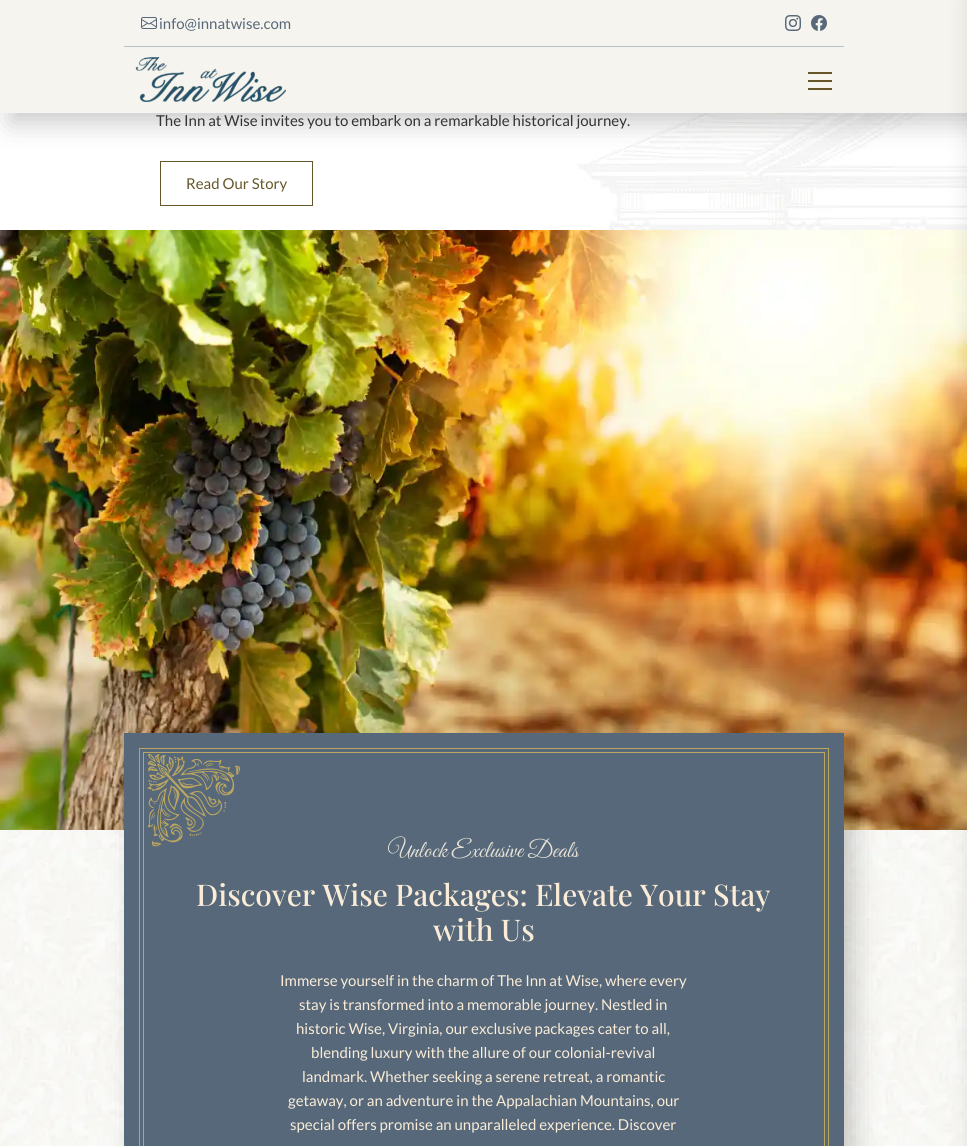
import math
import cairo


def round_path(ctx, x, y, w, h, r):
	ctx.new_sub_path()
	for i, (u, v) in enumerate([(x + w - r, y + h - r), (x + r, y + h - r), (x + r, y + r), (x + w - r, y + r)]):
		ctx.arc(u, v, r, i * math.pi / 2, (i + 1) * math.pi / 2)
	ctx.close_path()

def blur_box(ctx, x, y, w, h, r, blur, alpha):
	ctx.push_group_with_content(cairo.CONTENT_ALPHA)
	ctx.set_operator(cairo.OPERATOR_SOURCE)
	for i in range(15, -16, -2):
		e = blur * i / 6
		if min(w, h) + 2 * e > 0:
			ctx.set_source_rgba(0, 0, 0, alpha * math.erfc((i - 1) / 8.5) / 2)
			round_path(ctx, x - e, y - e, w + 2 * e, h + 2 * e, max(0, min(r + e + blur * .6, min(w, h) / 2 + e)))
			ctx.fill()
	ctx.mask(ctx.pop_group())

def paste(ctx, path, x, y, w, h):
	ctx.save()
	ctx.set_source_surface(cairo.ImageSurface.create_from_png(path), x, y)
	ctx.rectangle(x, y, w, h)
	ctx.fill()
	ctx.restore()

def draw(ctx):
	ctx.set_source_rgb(1, 1, 1)
	ctx.paint()
	paste(ctx, 'media/5.png', 0, 113, 967, 117)
	ctx.rectangle(160.5, 161.5, 152, 44)
	ctx.set_source_rgb(0.396, 0.341, 0.165)
	ctx.set_line_width(1)
	ctx.stroke()
	ctx.set_source_rgb(0, 0, 0)
	blur_box(ctx, 10, 10, 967, 113, 0, 13, 0.21)
	ctx.set_source_rgb(0.961, 0.957, 0.933)
	ctx.rectangle(0, 0, 967, 113)
	ctx.fill()
	ctx.set_source_rgb(0.722, 0.753, 0.78)
	ctx.rectangle(124, 46, 720, 1)
	ctx.fill()
	paste(ctx, 'media/1.png', 141, 17, 16, 12)
	ctx.select_font_face('Lato')
	ctx.set_font_size(15)
	ctx.set_source_rgb(0.337, 0.408, 0.478)
	ctx.move_to(159, 29)
	ctx.show_text('info@innatwise.com')
	paste(ctx, 'media/2.png', 785, 15, 16, 16)
	paste(ctx, 'media/3.png', 811, 15, 16, 16)
	paste(ctx, 'media/4.png', 135, 57, 151, 45)
	ctx.set_source_rgb(0.396, 0.341, 0.165)
	ctx.rectangle(808, 80, 24, 2)
	ctx.rectangle(808, 72, 24, 2)
	ctx.rectangle(808, 88, 24, 2)
	ctx.fill()
	ctx.set_source_rgb(0.98, 0.98, 0.98)
	ctx.rectangle(0, 830, 967, 316)
	ctx.fill()
	paste(ctx, 'media/6.png', 0, 830, 967, 316)
	paste(ctx, 'media/7.png', 0, 230, 967, 600)
	ctx.set_source_rgb(0, 0, 0)
	blur_box(ctx, 967, 0, 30, 1146, 0, 10, 0.1)
	ctx.set_source_rgb(0.2, 0.2, 0.2)
	ctx.move_to(156, 126)
	ctx.show_text('The Inn at Wise invites you to embark on a remarkable historical journey.')
	ctx.set_source_rgb(0.396, 0.341, 0.165)
	ctx.move_to(186, 189)
	ctx.show_text('Read Our Story')
	ctx.set_source_rgb(0, 0, 0)
	blur_box(ctx, 134, 743, 720, 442, 0, 13, 0.21)
	ctx.set_source_rgb(0.337, 0.408, 0.478)
	ctx.rectangle(124, 733, 720, 413)
	ctx.fill()
	ctx.rectangle(139.5, 748.5, 689, 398)
	ctx.set_source_rgb(0.733, 0.651, 0.38)
	ctx.stroke()
	ctx.rectangle(143.5, 752.5, 681, 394)
	ctx.stroke()
	paste(ctx, 'media/8.png', 147, 753, 94, 94)
	ctx.save()
	ctx.rectangle(388, 833, 191, 39)
	ctx.clip()
	ctx.select_font_face('Great Vibes')
	ctx.set_font_size(24)
	ctx.set_source_rgb(0.898, 0.882, 0.839)
	ctx.move_to(388, 857)
	ctx.show_text('Unlock Exclusive Deals')
	ctx.restore()
	ctx.select_font_face('Playfair Display Medium')
	ctx.set_font_size(29.9)
	ctx.set_source_rgb(0.98, 0.922, 0.843)
	ctx.move_to(196, 906)
	ctx.show_text('Discover Wise Packages: Elevate Your Stay')
	ctx.move_to(433, 941)
	ctx.show_text('with Us')
	ctx.select_font_face('Lato')
	ctx.set_font_size(15)
	for x, y, s in [
		(280, 986, 'Immerse yourself in the charm of The Inn at Wise, where every'),
		(299, 1010, 'stay is transformed into a memorable journey. Nestled in'),
		(296, 1034, 'historic Wise, Virginia, our exclusive packages cater to all,'),
		(311, 1058, 'blending luxury with the allure of our colonial-revival'),
		(302, 1082, 'landmark. Whether seeking a serene retreat, a romantic'),
		(288, 1106, 'getaway, or an adventure in the Appalachian Mountains, our'),
		(290, 1130, 'special offers promise an unparalleled experience. Discover'),
	]:
		ctx.move_to(x, y)
		ctx.show_text(s)


surface = cairo.ImageSurface(cairo.FORMAT_RGB24, 967, 1146)
ctx = cairo.Context(surface)
options = cairo.FontOptions()
options.set_hint_metrics(cairo.HINT_METRICS_OFF)
options.set_hint_style(cairo.HINT_STYLE_NONE)
ctx.set_font_options(options)
ctx.set_miter_limit(4)
draw(ctx)
surface.write_to_png('image.png')
